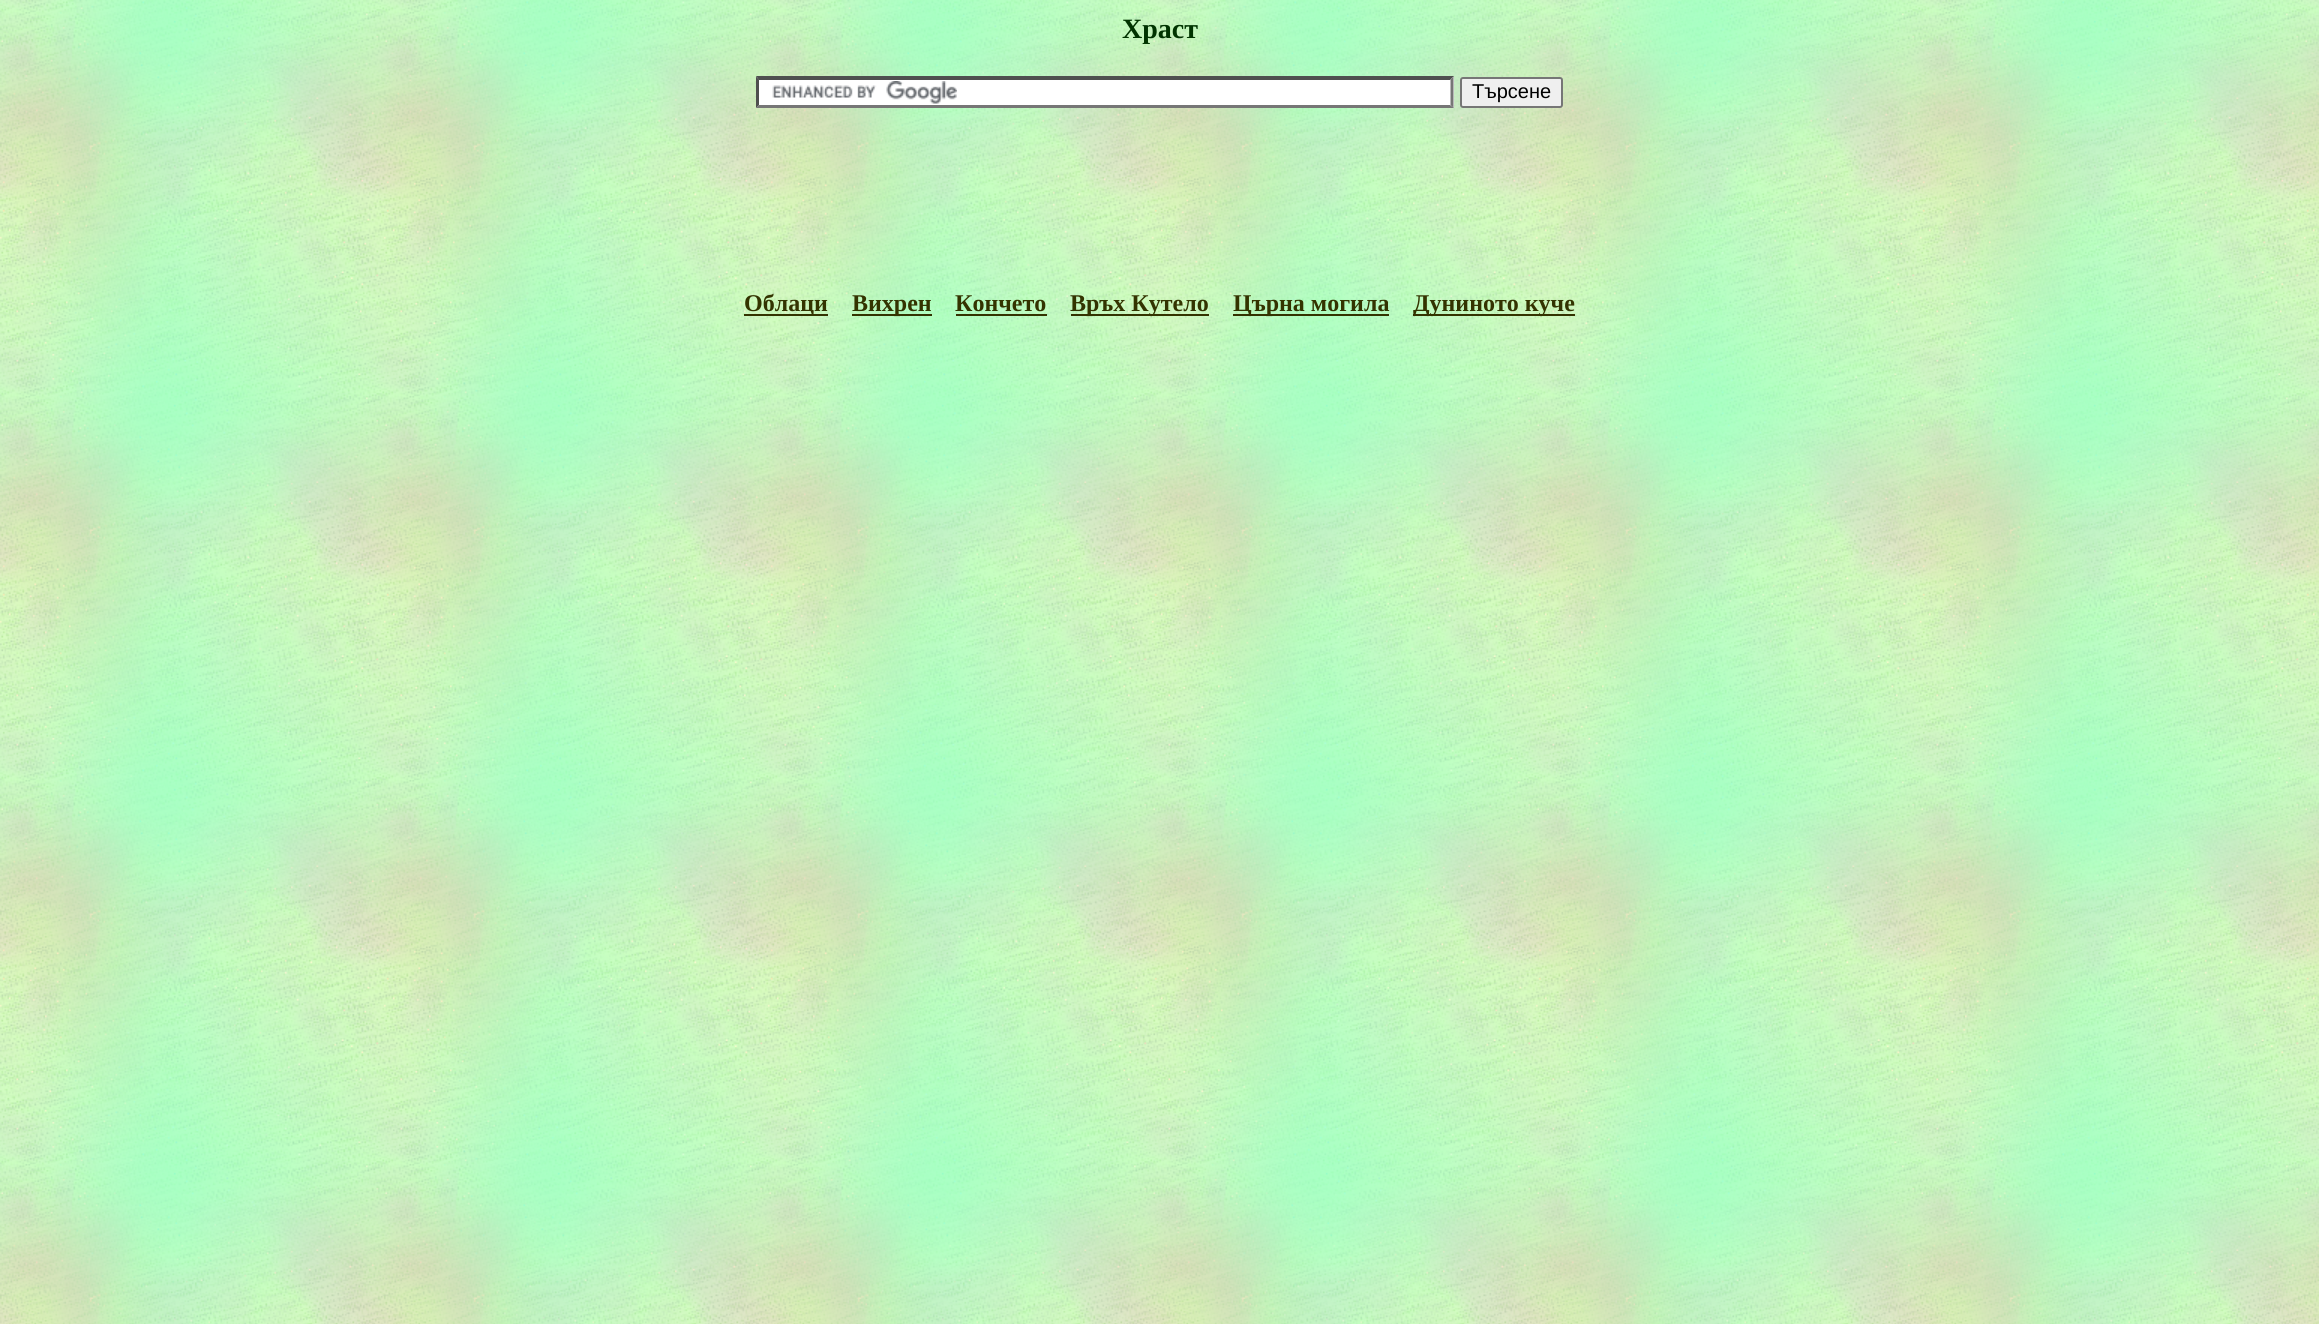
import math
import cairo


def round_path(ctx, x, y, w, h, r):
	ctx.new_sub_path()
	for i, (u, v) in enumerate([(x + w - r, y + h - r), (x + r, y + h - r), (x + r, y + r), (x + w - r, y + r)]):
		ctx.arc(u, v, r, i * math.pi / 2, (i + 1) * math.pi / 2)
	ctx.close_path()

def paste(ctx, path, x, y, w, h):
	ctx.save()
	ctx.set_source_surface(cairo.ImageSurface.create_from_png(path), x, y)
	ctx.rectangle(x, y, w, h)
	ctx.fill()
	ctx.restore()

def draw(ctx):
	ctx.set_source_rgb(1, 1, 1)
	ctx.paint()
	paste(ctx, 'media/1.png', 0, 0, 2319, 1324)
	ctx.select_font_face('Liberation Serif', cairo.FONT_SLANT_NORMAL, cairo.FONT_WEIGHT_BOLD)
	ctx.set_font_size(28)
	ctx.set_source_rgb(0, 0.2, 0)
	ctx.move_to(1122, 38)
	ctx.show_text('Храст')
	ctx.set_source_rgb(1, 1, 1)
	ctx.rectangle(756, 77, 698, 31)
	ctx.fill()
	paste(ctx, 'media/2.png', 772, 81, 185, 23)
	ctx.set_source_rgb(0.31, 0.31, 0.31)
	ctx.new_path()
	ctx.move_to(756, 76)
	ctx.line_to(1454, 76)
	ctx.line_to(1450, 80)
	ctx.line_to(759, 80)
	ctx.close_path()
	ctx.fill()
	ctx.set_source_rgb(0.463, 0.463, 0.463)
	ctx.new_path()
	ctx.move_to(1453.5, 76.5)
	ctx.line_to(1453.5, 108)
	ctx.line_to(1450.5, 105)
	ctx.line_to(1450.5, 79.5)
	ctx.close_path()
	ctx.fill()
	ctx.new_path()
	ctx.move_to(1454, 108)
	ctx.line_to(756, 108)
	ctx.line_to(759, 105)
	ctx.line_to(1450, 105)
	ctx.close_path()
	ctx.fill()
	ctx.set_source_rgb(0.31, 0.31, 0.31)
	ctx.new_path()
	ctx.move_to(756, 108)
	ctx.line_to(756, 76.5)
	ctx.line_to(759, 79.5)
	ctx.line_to(759, 105)
	ctx.close_path()
	ctx.fill()
	ctx.set_source_rgb(0.937, 0.937, 0.937)
	round_path(ctx, 1461, 78, 101, 29, 2)
	ctx.fill_preserve()
	ctx.set_source_rgb(0.463, 0.463, 0.463)
	ctx.stroke()
	ctx.select_font_face('Liberation Sans')
	ctx.set_font_size(20)
	ctx.set_source_rgb(0, 0, 0)
	ctx.move_to(1472, 98)
	ctx.show_text('Търсене')
	ctx.set_source_rgb(0.2, 0.2, 0)
	ctx.rectangle(744, 314, 84, 2)
	ctx.fill()
	ctx.select_font_face('Liberation Serif', cairo.FONT_SLANT_NORMAL, cairo.FONT_WEIGHT_BOLD)
	ctx.set_font_size(24)
	ctx.move_to(744, 311)
	ctx.show_text('Облаци')
	ctx.rectangle(852, 314, 80, 2)
	ctx.fill()
	ctx.move_to(852, 311)
	ctx.show_text('Вихрен')
	ctx.move_to(955, 311)
	ctx.show_text('Кончето')
	ctx.rectangle(956, 314, 91, 2)
	ctx.fill()
	ctx.rectangle(1071, 314, 138, 2)
	ctx.fill()
	ctx.move_to(1070, 311)
	ctx.show_text('Връх Кутело')
	ctx.rectangle(1233, 314, 156, 2)
	ctx.fill()
	ctx.move_to(1233, 311)
	ctx.show_text('Църна могила')
	ctx.rectangle(1413, 314, 162, 2)
	ctx.fill()
	ctx.move_to(1413, 311)
	ctx.show_text('Дуниното куче')


surface = cairo.ImageSurface(cairo.FORMAT_RGB24, 2319, 1324)
ctx = cairo.Context(surface)
options = cairo.FontOptions()
options.set_hint_metrics(cairo.HINT_METRICS_OFF)
options.set_hint_style(cairo.HINT_STYLE_NONE)
ctx.set_font_options(options)
ctx.set_miter_limit(4)
draw(ctx)
surface.write_to_png('image.png')
